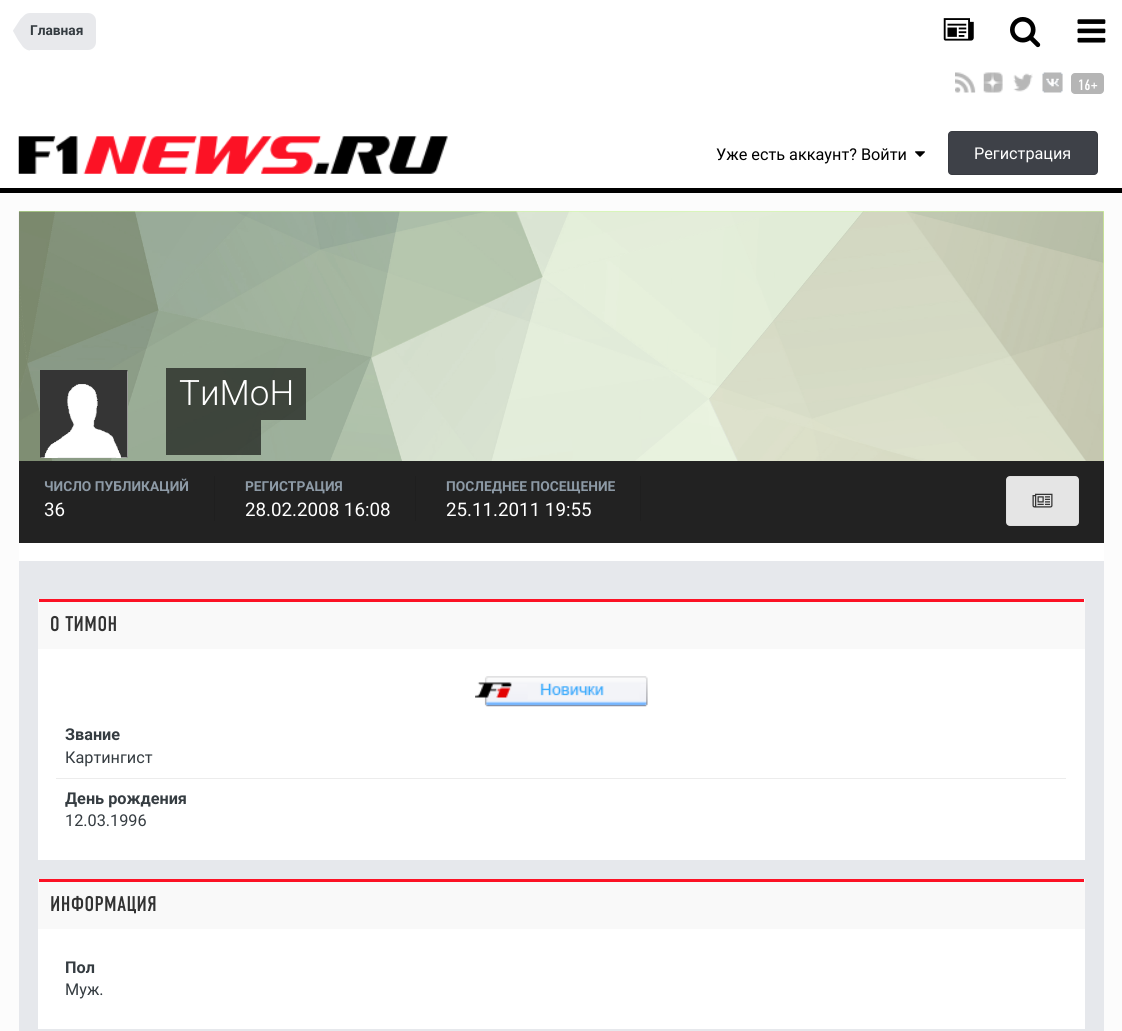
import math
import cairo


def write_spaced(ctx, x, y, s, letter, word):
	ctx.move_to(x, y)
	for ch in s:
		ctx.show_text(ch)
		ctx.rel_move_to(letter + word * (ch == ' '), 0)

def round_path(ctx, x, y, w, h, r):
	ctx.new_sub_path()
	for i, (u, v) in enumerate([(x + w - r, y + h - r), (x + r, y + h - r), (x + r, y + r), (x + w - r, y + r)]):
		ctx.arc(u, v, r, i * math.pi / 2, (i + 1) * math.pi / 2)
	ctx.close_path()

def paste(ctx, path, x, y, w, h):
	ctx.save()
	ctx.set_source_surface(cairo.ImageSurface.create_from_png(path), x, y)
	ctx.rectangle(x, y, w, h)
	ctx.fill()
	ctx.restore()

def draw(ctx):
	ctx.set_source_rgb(0.988, 0.988, 0.988)
	ctx.paint()
	ctx.set_source_rgb(1, 1, 1)
	ctx.rectangle(0, 0, 1122, 188)
	ctx.fill()
	ctx.set_source_rgb(0.91, 0.914, 0.922)
	ctx.new_path()
	ctx.move_to(30, 13)
	ctx.line_to(88, 13)
	ctx.curve_to(92.5, 13, 96, 16.5, 96, 21)
	ctx.line_to(96, 42)
	ctx.curve_to(96, 46.5, 92.5, 50, 88, 50)
	ctx.line_to(30, 50)
	ctx.close_path()
	ctx.fill()
	ctx.new_path()
	ctx.move_to(13, 31)
	ctx.line_to(30, 31)
	ctx.line_to(30, 50.5)
	ctx.curve_to(28, 50.5, 25.5, 49.5, 23, 47)
	ctx.line_to(18, 40)
	ctx.close_path()
	ctx.move_to(30, 13)
	ctx.line_to(30, 31)
	ctx.line_to(13, 31)
	ctx.line_to(13, 30.5)
	ctx.line_to(20.5, 19)
	ctx.line_to(24, 15.5)
	ctx.curve_to(25.5, 14, 27.5, 13, 30, 13)
	ctx.close_path()
	ctx.fill()
	ctx.select_font_face('Roboto', cairo.FONT_SLANT_NORMAL, cairo.FONT_WEIGHT_BOLD)
	ctx.set_font_size(13.75)
	ctx.set_source_rgb(0.208, 0.235, 0.255)
	ctx.move_to(30, 35)
	ctx.show_text('Главная')
	paste(ctx, 'media/1.png', 943, 18, 31, 23)
	paste(ctx, 'media/2.png', 1010, 17, 31, 31)
	paste(ctx, 'media/3.png', 1077, 19, 29, 24)
	paste(ctx, 'media/4.png', 955, 72, 21, 21)
	paste(ctx, 'media/5.png', 983, 72, 20, 21)
	paste(ctx, 'media/6.png', 1013, 73, 20, 19)
	paste(ctx, 'media/7.png', 1042, 72, 21, 21)
	ctx.set_source_rgb(0.71, 0.71, 0.71)
	round_path(ctx, 1071, 73, 33, 21, 4)
	ctx.fill()
	ctx.select_font_face('Din')
	ctx.set_font_size(15)
	ctx.set_source_rgb(1, 1, 1)
	ctx.move_to(1078, 90)
	ctx.show_text('16+')
	paste(ctx, 'media/8.png', 18, 136, 430, 38)
	ctx.select_font_face('Roboto')
	ctx.set_font_size(16.25)
	ctx.set_source_rgb(0, 0, 0)
	ctx.move_to(716, 160)
	ctx.show_text('Уже есть аккаунт? Войти')
	paste(ctx, 'media/9.png', 915, 151, 10, 6)
	ctx.set_source_rgb(0.243, 0.255, 0.282)
	round_path(ctx, 948, 131, 150, 44, 4)
	ctx.fill()
	round_path(ctx, 948.5, 131.5, 149, 43, 3.5)
	ctx.set_source_rgba(0, 0, 0, 0.1)
	ctx.set_line_width(1)
	ctx.stroke()
	ctx.set_source_rgb(1, 1, 1)
	ctx.move_to(974, 159)
	ctx.show_text('Регистрация')
	ctx.set_source_rgb(0, 0, 0)
	ctx.rectangle(0, 188, 1122, 5)
	ctx.fill()
	ctx.set_source_rgb(1, 1, 1)
	ctx.rectangle(19, 543, 1085, 18)
	ctx.fill()
	ctx.set_source_rgb(0.808, 1, 0.6)
	ctx.rectangle(19, 211, 1085, 250)
	ctx.fill()
	paste(ctx, 'media/10.png', 18, 211, 1086, 250)
	ctx.set_source_rgb(1, 1, 1)
	round_path(ctx, 40, 370, 88, 88, 2.5)
	ctx.fill()
	paste(ctx, 'media/11.png', 40, 370, 88, 88)
	ctx.set_source_rgba(0, 0, 0, 0.6)
	ctx.rectangle(166, 368, 140, 52)
	ctx.fill()
	ctx.select_font_face('Roboto Light')
	ctx.set_font_size(35)
	ctx.set_source_rgb(1, 1, 1)
	ctx.move_to(179, 405)
	ctx.show_text('ТиМоН')
	ctx.set_source_rgba(0, 0, 0, 0.6)
	ctx.rectangle(166, 420, 95, 35)
	ctx.fill()
	ctx.set_source_rgb(0.133, 0.133, 0.133)
	ctx.rectangle(19, 461, 1085, 82)
	ctx.fill()
	ctx.set_source_rgb(0.122, 0.122, 0.122)
	ctx.rectangle(214, 476, 1, 45)
	ctx.fill()
	ctx.select_font_face('Roboto', cairo.FONT_SLANT_NORMAL, cairo.FONT_WEIGHT_BOLD)
	ctx.set_font_size(13.75)
	ctx.set_source_rgb(0.553, 0.604, 0.651)
	ctx.move_to(44, 491)
	ctx.show_text('ЧИСЛО ПУБЛИКАЦИЙ')
	ctx.select_font_face('Roboto')
	ctx.set_font_size(18.75)
	ctx.set_source_rgb(1, 1, 1)
	ctx.move_to(44, 516)
	ctx.show_text('36')
	ctx.set_source_rgb(0.122, 0.122, 0.122)
	ctx.rectangle(415, 476, 1, 45)
	ctx.fill()
	ctx.select_font_face('Roboto', cairo.FONT_SLANT_NORMAL, cairo.FONT_WEIGHT_BOLD)
	ctx.set_font_size(13.75)
	ctx.set_source_rgb(0.553, 0.604, 0.651)
	ctx.move_to(245, 491)
	ctx.show_text('РЕГИСТРАЦИЯ')
	ctx.select_font_face('Roboto')
	ctx.set_font_size(18.75)
	ctx.set_source_rgb(1, 1, 1)
	ctx.move_to(245, 516)
	ctx.show_text('28.02.2008 16:08')
	ctx.set_source_rgb(0.122, 0.122, 0.122)
	ctx.rectangle(640, 476, 1, 45)
	ctx.fill()
	ctx.select_font_face('Roboto', cairo.FONT_SLANT_NORMAL, cairo.FONT_WEIGHT_BOLD)
	ctx.set_font_size(13.75)
	ctx.set_source_rgb(0.553, 0.604, 0.651)
	ctx.move_to(446, 491)
	ctx.show_text('ПОСЛЕДНЕЕ ПОСЕЩЕНИЕ')
	ctx.select_font_face('Roboto')
	ctx.set_font_size(18.75)
	ctx.set_source_rgb(1, 1, 1)
	ctx.move_to(446, 516)
	ctx.show_text('25.11.2011 19:55')
	ctx.set_source_rgb(0.898, 0.898, 0.898)
	round_path(ctx, 1006, 476, 73, 50, 4)
	ctx.fill()
	ctx.rectangle(1006.5, 476.5, 72, 49)
	ctx.set_source_rgba(0, 0, 0, 0.03)
	ctx.stroke()
	paste(ctx, 'media/12.png', 1032, 493, 21, 15)
	ctx.set_source_rgb(0.902, 0.91, 0.922)
	ctx.rectangle(19, 561, 1085, 470)
	ctx.fill()
	ctx.set_source_rgb(1, 1, 1)
	ctx.rectangle(38, 599, 1047, 261)
	ctx.fill()
	ctx.set_source_rgb(0.976, 0.976, 0.976)
	ctx.new_path()
	ctx.move_to(40.5, 599)
	ctx.line_to(1082.5, 599)
	ctx.curve_to(1084, 599, 1085, 600, 1085, 601.5)
	ctx.line_to(1085, 649)
	ctx.line_to(38, 649)
	ctx.line_to(38, 601.5)
	ctx.curve_to(38, 600, 39, 599, 40.5, 599)
	ctx.close_path()
	ctx.fill()
	ctx.set_source_rgb(0.988, 0.071, 0.145)
	ctx.rectangle(39, 599, 1045, 3)
	ctx.fill()
	ctx.select_font_face('Din')
	ctx.set_font_size(21.25)
	ctx.set_source_rgb(0.196, 0.196, 0.196)
	write_spaced(ctx, 50, 631, 'О ТИМОН', 0.5, 0)
	paste(ctx, 'media/13.png', 475, 676, 173, 31)
	ctx.set_source_rgb(0.922, 0.922, 0.922)
	ctx.rectangle(56, 778, 1010, 1)
	ctx.fill()
	ctx.select_font_face('Roboto', cairo.FONT_SLANT_NORMAL, cairo.FONT_WEIGHT_BOLD)
	ctx.set_font_size(16.25)
	ctx.set_source_rgb(0.208, 0.235, 0.255)
	ctx.move_to(65, 740)
	ctx.show_text('Звание')
	ctx.select_font_face('Roboto')
	ctx.move_to(65, 763)
	ctx.show_text('Картингист')
	ctx.select_font_face('Roboto', cairo.FONT_SLANT_NORMAL, cairo.FONT_WEIGHT_BOLD)
	ctx.move_to(65, 804)
	ctx.show_text('День рождения')
	ctx.select_font_face('Roboto')
	ctx.move_to(65, 826)
	ctx.show_text('12.03.1996')
	ctx.set_source_rgb(1, 1, 1)
	ctx.rectangle(38, 879, 1047, 150)
	ctx.fill()
	ctx.set_source_rgb(0.976, 0.976, 0.976)
	ctx.new_path()
	ctx.move_to(40.5, 879)
	ctx.line_to(1082.5, 879)
	ctx.curve_to(1084, 879, 1085, 880, 1085, 881.5)
	ctx.line_to(1085, 929)
	ctx.line_to(38, 929)
	ctx.line_to(38, 881.5)
	ctx.curve_to(38, 880, 39, 879, 40.5, 879)
	ctx.close_path()
	ctx.fill()
	ctx.set_source_rgb(0.988, 0.071, 0.145)
	ctx.rectangle(39, 879, 1045, 3)
	ctx.fill()
	ctx.select_font_face('Din')
	ctx.set_font_size(21.25)
	ctx.set_source_rgb(0.196, 0.196, 0.196)
	write_spaced(ctx, 50, 911, 'ИНФОРМАЦИЯ', 0.5, 0)
	ctx.select_font_face('Roboto', cairo.FONT_SLANT_NORMAL, cairo.FONT_WEIGHT_BOLD)
	ctx.set_font_size(16.25)
	ctx.set_source_rgb(0.208, 0.235, 0.255)
	ctx.move_to(65, 973)
	ctx.show_text('Пол')
	ctx.select_font_face('Roboto')
	ctx.move_to(65, 995)
	ctx.show_text('Муж.')


surface = cairo.ImageSurface(cairo.FORMAT_RGB24, 1122, 1031)
ctx = cairo.Context(surface)
options = cairo.FontOptions()
options.set_hint_metrics(cairo.HINT_METRICS_OFF)
options.set_hint_style(cairo.HINT_STYLE_NONE)
ctx.set_font_options(options)
ctx.set_miter_limit(4)
draw(ctx)
surface.write_to_png('image.png')
